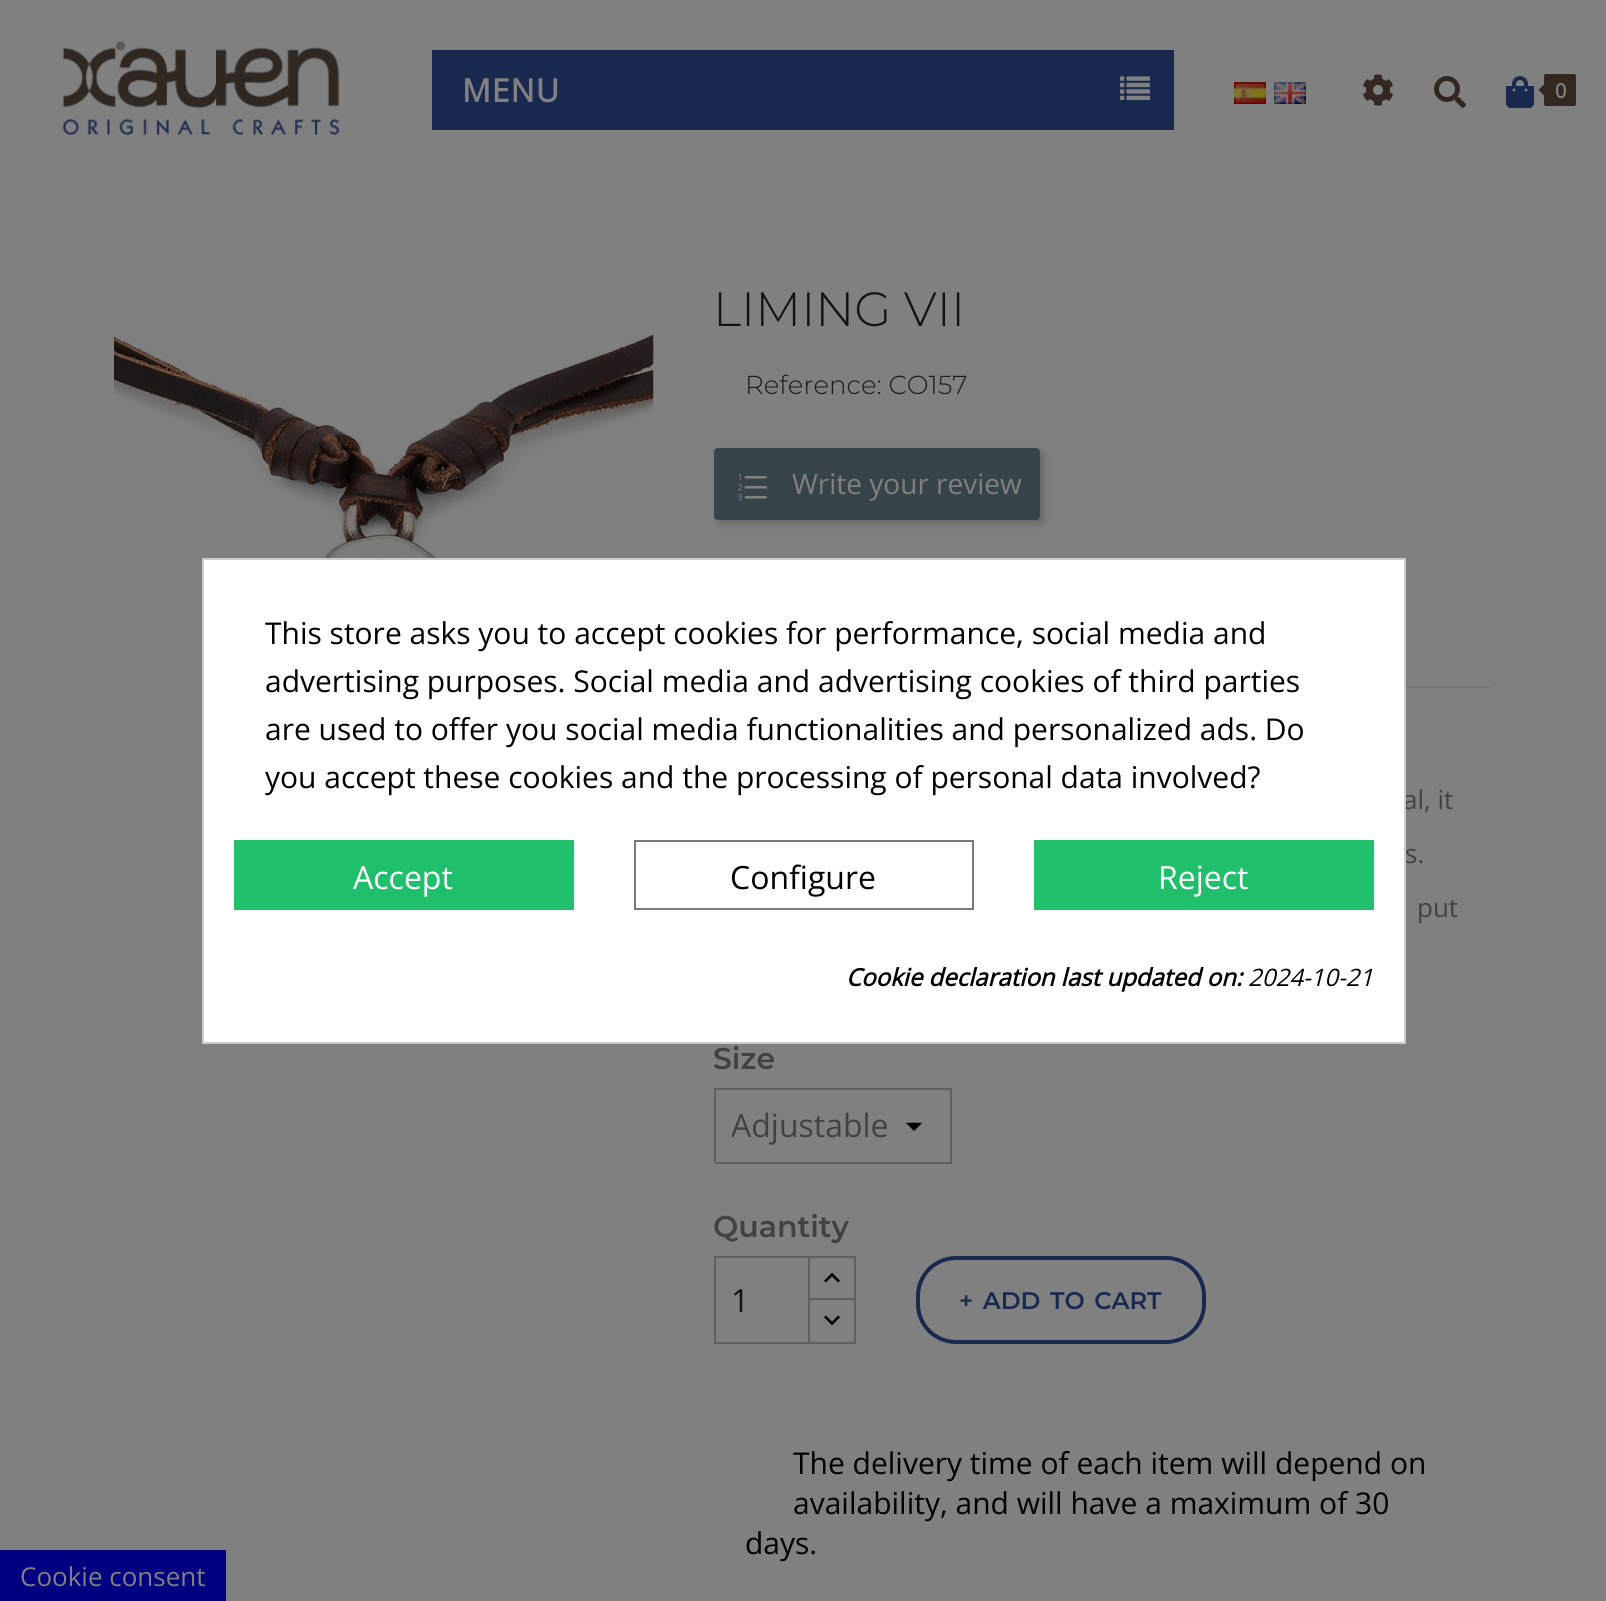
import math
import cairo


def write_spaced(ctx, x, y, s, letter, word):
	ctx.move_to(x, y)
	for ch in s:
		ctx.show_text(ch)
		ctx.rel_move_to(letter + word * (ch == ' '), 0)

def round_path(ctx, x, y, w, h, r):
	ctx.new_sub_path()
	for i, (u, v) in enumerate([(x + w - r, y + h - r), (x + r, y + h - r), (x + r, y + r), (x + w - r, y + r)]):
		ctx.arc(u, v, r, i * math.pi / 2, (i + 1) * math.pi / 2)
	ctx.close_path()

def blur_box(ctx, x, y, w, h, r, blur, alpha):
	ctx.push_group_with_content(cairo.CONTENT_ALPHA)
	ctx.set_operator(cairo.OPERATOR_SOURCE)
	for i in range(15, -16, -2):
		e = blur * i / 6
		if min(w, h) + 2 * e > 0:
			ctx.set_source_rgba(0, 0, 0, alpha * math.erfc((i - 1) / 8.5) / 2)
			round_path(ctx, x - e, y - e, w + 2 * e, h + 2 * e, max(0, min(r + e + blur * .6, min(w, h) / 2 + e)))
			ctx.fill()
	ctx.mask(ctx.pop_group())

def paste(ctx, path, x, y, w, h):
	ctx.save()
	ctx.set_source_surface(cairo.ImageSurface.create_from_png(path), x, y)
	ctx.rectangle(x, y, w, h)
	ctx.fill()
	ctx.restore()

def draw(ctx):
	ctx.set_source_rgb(0.502, 0.502, 0.502)
	ctx.paint()
	paste(ctx, 'media/1.png', 62, 41, 278, 95)
	ctx.set_source_rgb(0.094, 0.157, 0.31)
	ctx.rectangle(432, 50, 742, 80)
	ctx.fill()
	ctx.select_font_face('Open Sans', cairo.FONT_SLANT_NORMAL, cairo.FONT_WEIGHT_BOLD)
	ctx.set_font_size(32)
	ctx.set_source_rgb(0.502, 0.502, 0.502)
	write_spaced(ctx, 462, 102, 'MENU', 1, 0)
	paste(ctx, 'media/2.png', 1120, 76, 30, 24)
	paste(ctx, 'media/3.png', 1234, 82, 32, 22)
	paste(ctx, 'media/4.png', 1274, 82, 32, 22)
	paste(ctx, 'media/5.png', 1363, 74, 30, 32)
	paste(ctx, 'media/6.png', 1434, 76, 32, 32)
	paste(ctx, 'media/7.png', 1506, 76, 28, 32)
	ctx.set_source_rgb(0.196, 0.153, 0.129)
	round_path(ctx, 1544, 74, 32, 32, 2)
	ctx.fill()
	ctx.new_path()
	ctx.move_to(1545.5, 83)
	ctx.line_to(1552.5, 90)
	ctx.line_to(1545.5, 97)
	ctx.line_to(1538.5, 90)
	ctx.close_path()
	ctx.fill()
	ctx.set_font_size(20)
	ctx.set_source_rgb(0.502, 0.502, 0.502)
	ctx.move_to(1555, 98)
	ctx.show_text('0')
	paste(ctx, 'media/8.png', 114, 333, 540, 440)
	ctx.select_font_face('Montserrat Light')
	ctx.set_font_size(48)
	ctx.set_source_rgb(0.075, 0.075, 0.075)
	ctx.move_to(713, 326)
	ctx.show_text('LIMING VII')
	ctx.set_font_size(26)
	ctx.set_source_rgb(0.102, 0.102, 0.102)
	ctx.move_to(745, 394)
	ctx.show_text('Reference: CO157')
	ctx.set_source_rgb(0, 0, 0)
	blur_box(ctx, 718, 452, 326, 72, 4, 4, 0.2)
	ctx.set_source_rgb(0.212, 0.263, 0.282)
	round_path(ctx, 714, 448, 326, 72, 4)
	ctx.fill()
	paste(ctx, 'media/9.png', 738, 474, 29, 27)
	ctx.select_font_face('Open Sans')
	ctx.set_font_size(28)
	ctx.set_source_rgb(0.502, 0.502, 0.502)
	ctx.move_to(792, 494)
	ctx.show_text('Write your review')
	ctx.set_source_rgb(0.463, 0.463, 0.463)
	ctx.rectangle(1406, 686, 86, 2)
	ctx.fill()
	ctx.set_font_size(26)
	ctx.set_source_rgb(0.255, 0.255, 0.255)
	for x, y, s in [
		(1403, 809, 'al, it'),
		(1405, 863, 's.'),
		(1417, 917, 'put'),
	]:
		ctx.move_to(x, y)
		ctx.show_text(s)
	ctx.select_font_face('Montserrat SemiBold')
	ctx.set_font_size(30)
	ctx.move_to(713, 1069)
	ctx.show_text('Size')
	paste(ctx, 'media/10.png', 905, 1122, 18, 9)
	ctx.rectangle(715, 1089, 236, 74)
	ctx.set_source_rgb(0.376, 0.376, 0.376)
	ctx.stroke()
	ctx.save()
	ctx.rectangle(732, 1106, 158, 40)
	ctx.clip()
	ctx.select_font_face('Open Sans')
	ctx.set_font_size(32)
	ctx.set_source_rgb(0.255, 0.255, 0.255)
	ctx.move_to(731, 1137)
	ctx.show_text('Adjustable')
	ctx.restore()
	ctx.set_source_rgb(0.255, 0.255, 0.255)
	ctx.move_to(713, 1237)
	ctx.show_text('Quantity')
	ctx.rectangle(809, 1257, 46, 44)
	ctx.set_source_rgb(0.376, 0.376, 0.376)
	ctx.stroke()
	ctx.set_source_rgb(0.502, 0.502, 0.502)
	ctx.rectangle(810, 1300, 44, 2)
	ctx.fill()
	ctx.rectangle(809, 1299, 46, 44)
	ctx.set_source_rgb(0.376, 0.376, 0.376)
	ctx.stroke()
	ctx.rectangle(715, 1257, 94, 86)
	ctx.stroke()
	ctx.select_font_face('Open Sans')
	ctx.set_font_size(32)
	ctx.set_source_rgb(0.075, 0.075, 0.075)
	ctx.move_to(731, 1312)
	ctx.show_text('1')
	paste(ctx, 'media/11.png', 824, 1272, 16, 11)
	paste(ctx, 'media/12.png', 824, 1315, 16, 11)
	round_path(ctx, 918, 1258, 286, 84, 38)
	ctx.set_source_rgb(0.094, 0.157, 0.31)
	ctx.set_line_width(4)
	ctx.stroke()
	ctx.select_font_face('Montserrat SemiBold')
	ctx.set_font_size(24)
	write_spaced(ctx, 959, 1309, '+ ADD TO CART', 0, 3)
	ctx.select_font_face('Open Sans')
	ctx.set_font_size(30)
	ctx.set_source_rgb(0, 0, 0)
	for x, y, s in [
		(793, 1474, 'The delivery time of each item will depend on'),
		(793, 1514, 'availability, and will have a maximum of 30'),
		(745, 1554, 'days.'),
	]:
		ctx.move_to(x, y)
		ctx.show_text(s)
	ctx.set_source_rgb(1, 1, 1)
	ctx.rectangle(203, 559, 1202, 484)
	ctx.fill_preserve()
	ctx.set_source_rgb(0.8, 0.8, 0.8)
	ctx.set_line_width(2)
	ctx.stroke()
	ctx.set_source_rgb(0, 0, 0)
	for x, y, s in [
		(265, 644, 'This store asks you to accept cookies for performance, social media and'),
		(265, 692, 'advertising purposes. Social media and advertising cookies of third parties'),
		(265, 740, 'are used to offer you social media functionalities and personalized ads. Do'),
		(265, 788, 'you accept these cookies and the processing of personal data involved?'),
	]:
		ctx.move_to(x, y)
		ctx.show_text(s)
	ctx.set_source_rgb(0.125, 0.749, 0.42)
	ctx.rectangle(234, 840, 340, 70)
	ctx.fill()
	ctx.set_font_size(32)
	ctx.set_source_rgb(1, 1, 1)
	ctx.move_to(353, 889)
	ctx.show_text('Accept')
	ctx.rectangle(635, 841, 338, 68)
	ctx.set_source_rgb(0.478, 0.478, 0.478)
	ctx.stroke()
	ctx.set_source_rgb(0, 0, 0)
	ctx.move_to(730, 889)
	ctx.show_text('Configure')
	ctx.set_source_rgb(0.125, 0.749, 0.42)
	ctx.rectangle(1034, 840, 340, 70)
	ctx.fill()
	ctx.set_source_rgb(1, 1, 1)
	ctx.move_to(1158, 889)
	ctx.show_text('Reject')
	ctx.select_font_face('Open Sans', cairo.FONT_SLANT_ITALIC, cairo.FONT_WEIGHT_BOLD)
	ctx.set_font_size(24)
	ctx.set_source_rgb(0, 0, 0)
	ctx.move_to(846, 986)
	ctx.show_text('Cookie declaration last updated on:')
	ctx.select_font_face('Open Sans', cairo.FONT_SLANT_ITALIC)
	ctx.move_to(1248, 986)
	ctx.show_text('2024-10-21')
	ctx.set_source_rgb(0, 0, 0.502)
	ctx.rectangle(0, 1550, 226, 51)
	ctx.fill()
	ctx.select_font_face('Open Sans')
	ctx.set_font_size(26)
	ctx.set_source_rgb(0.502, 0.502, 0.502)
	ctx.move_to(20, 1586)
	ctx.show_text('Cookie consent')


surface = cairo.ImageSurface(cairo.FORMAT_RGB24, 1606, 1601)
ctx = cairo.Context(surface)
options = cairo.FontOptions()
options.set_hint_metrics(cairo.HINT_METRICS_OFF)
options.set_hint_style(cairo.HINT_STYLE_NONE)
ctx.set_font_options(options)
ctx.set_miter_limit(4)
draw(ctx)
surface.write_to_png('image.png')
